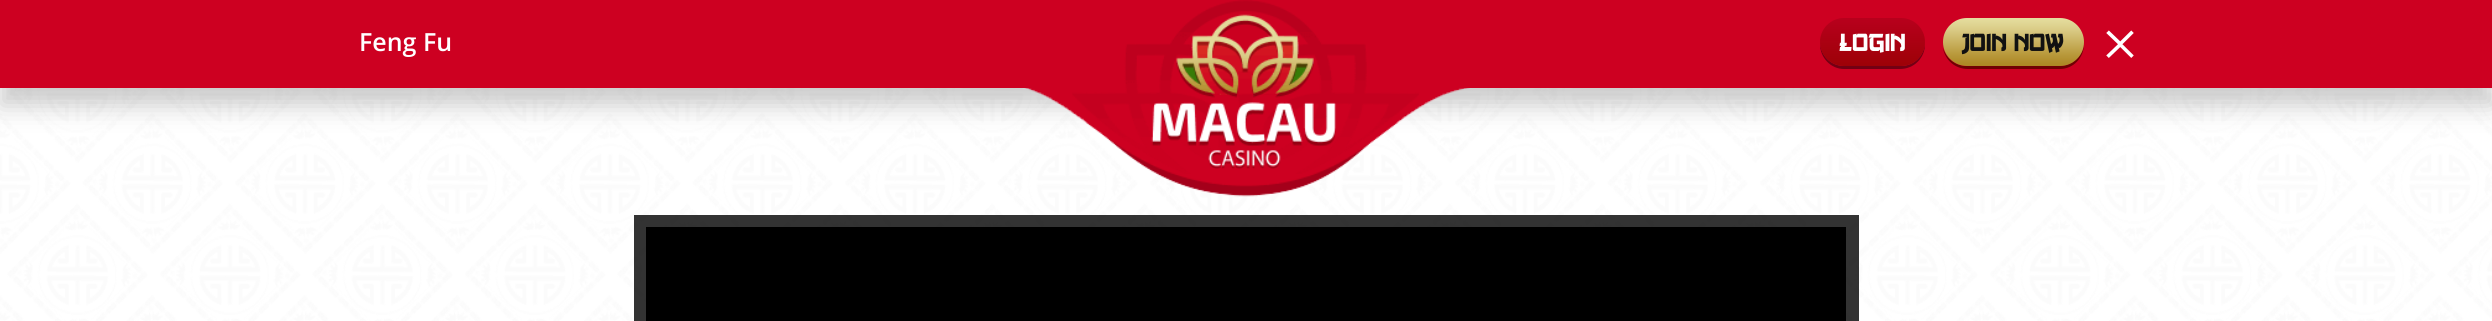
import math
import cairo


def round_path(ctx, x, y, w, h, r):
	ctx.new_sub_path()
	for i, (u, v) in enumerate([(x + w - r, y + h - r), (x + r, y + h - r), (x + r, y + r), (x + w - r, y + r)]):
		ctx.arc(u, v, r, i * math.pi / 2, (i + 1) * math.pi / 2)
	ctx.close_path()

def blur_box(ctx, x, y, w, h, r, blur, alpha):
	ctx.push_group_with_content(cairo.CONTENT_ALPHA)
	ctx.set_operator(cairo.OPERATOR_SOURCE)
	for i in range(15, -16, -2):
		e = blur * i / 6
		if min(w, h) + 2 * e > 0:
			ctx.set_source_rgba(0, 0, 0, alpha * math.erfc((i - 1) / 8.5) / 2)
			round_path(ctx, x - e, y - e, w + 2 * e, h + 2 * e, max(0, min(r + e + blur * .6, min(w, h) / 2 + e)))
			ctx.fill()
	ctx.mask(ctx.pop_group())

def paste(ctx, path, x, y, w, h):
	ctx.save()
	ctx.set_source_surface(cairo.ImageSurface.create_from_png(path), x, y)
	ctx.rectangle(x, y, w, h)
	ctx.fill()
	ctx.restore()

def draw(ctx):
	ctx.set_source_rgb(1, 1, 1)
	ctx.paint()
	paste(ctx, 'media/1.png', 0, 88, 2492, 233)
	ctx.set_source_rgb(0, 0, 0)
	blur_box(ctx, 0, 19, 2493, 87, 0, 12.5, 0.2)
	ctx.set_source_rgb(0.804, 0, 0.129)
	ctx.rectangle(0, 0, 2492, 88)
	ctx.fill()
	ctx.select_font_face('Open Sans SemiBold')
	ctx.set_font_size(25)
	ctx.set_source_rgb(1, 1, 1)
	ctx.move_to(359, 51)
	ctx.show_text('Feng Fu')
	paste(ctx, 'media/2.png', 2106, 30, 28, 28)
	paste(ctx, 'media/4.png', 1024, 88, 446, 109)
	paste(ctx, 'media/3.png', 1072, 0, 347, 174)
	ctx.set_source_rgb(0.451, 0, 0.075)
	ctx.new_path()
	ctx.move_to(1820, 43)
	ctx.line_to(1820, 44)
	ctx.curve_to(1820, 58, 1831, 69, 1844, 69)
	ctx.line_to(1900, 69)
	ctx.curve_to(1914, 69, 1925, 58, 1925, 44)
	ctx.line_to(1925, 43)
	ctx.curve_to(1924, 56, 1914, 66, 1901, 66)
	ctx.line_to(1844, 66)
	ctx.curve_to(1831, 66, 1821, 56, 1820, 43)
	ctx.close_path()
	ctx.fill()
	gradient = cairo.LinearGradient(1873, 17, 1873, 66)
	gradient.add_color_stop_rgba(0, 0.722, 0, 0.114, 1)
	gradient.add_color_stop_rgba(1, 0.616, 0.004, 0.027, 1)
	ctx.set_source(gradient)
	round_path(ctx, 1820, 18, 105, 48, 24)
	ctx.fill()
	ctx.select_font_face('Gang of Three')
	ctx.set_font_size(26)
	ctx.set_source_rgb(1, 1, 1)
	ctx.move_to(1839, 51)
	ctx.show_text('Login')
	ctx.set_source_rgb(0.439, 0, 0.012)
	ctx.new_path()
	ctx.move_to(1943, 48)
	ctx.curve_to(1945, 60, 1955, 69, 1968, 69)
	ctx.line_to(2060, 69)
	ctx.curve_to(2073, 69, 2084, 58, 2084, 44)
	ctx.line_to(2084, 41)
	ctx.line_to(2084, 42)
	ctx.curve_to(2084, 55, 2073, 66, 2059, 66)
	ctx.line_to(1967, 66)
	ctx.curve_to(1955, 66, 1946, 58, 1943, 48)
	ctx.close_path()
	ctx.fill()
	gradient = cairo.LinearGradient(2013, 17, 2013, 66)
	gradient.add_color_stop_rgba(0, 0.902, 0.871, 0.627, 0.94)
	gradient.add_color_stop_rgba(0.02, 0.898, 0.867, 0.62, 1)
	gradient.add_color_stop_rgba(0.12, 0.882, 0.843, 0.588, 1)
	gradient.add_color_stop_rgba(0.24, 0.859, 0.804, 0.533, 1)
	gradient.add_color_stop_rgba(0.76, 0.725, 0.6, 0.235, 1)
	gradient.add_color_stop_rgba(0.93, 0.686, 0.545, 0.161, 1)
	gradient.add_color_stop_rgba(1, 0.678, 0.529, 0.137, 1)
	ctx.set_source(gradient)
	round_path(ctx, 1943, 18, 141, 48, 24)
	ctx.fill()
	ctx.set_source_rgb(0.067, 0.067, 0.067)
	ctx.move_to(1961, 51)
	ctx.show_text('Join now')
	ctx.set_source_rgba(0, 0, 0, 0.8)
	ctx.rectangle(634, 215, 1225, 106)
	ctx.fill()
	ctx.set_source_rgb(0, 0, 0)
	ctx.rectangle(646, 227, 1200, 94)
	ctx.fill()


surface = cairo.ImageSurface(cairo.FORMAT_RGB24, 2492, 321)
ctx = cairo.Context(surface)
options = cairo.FontOptions()
options.set_hint_metrics(cairo.HINT_METRICS_OFF)
options.set_hint_style(cairo.HINT_STYLE_NONE)
ctx.set_font_options(options)
ctx.set_miter_limit(4)
draw(ctx)
surface.write_to_png('image.png')
